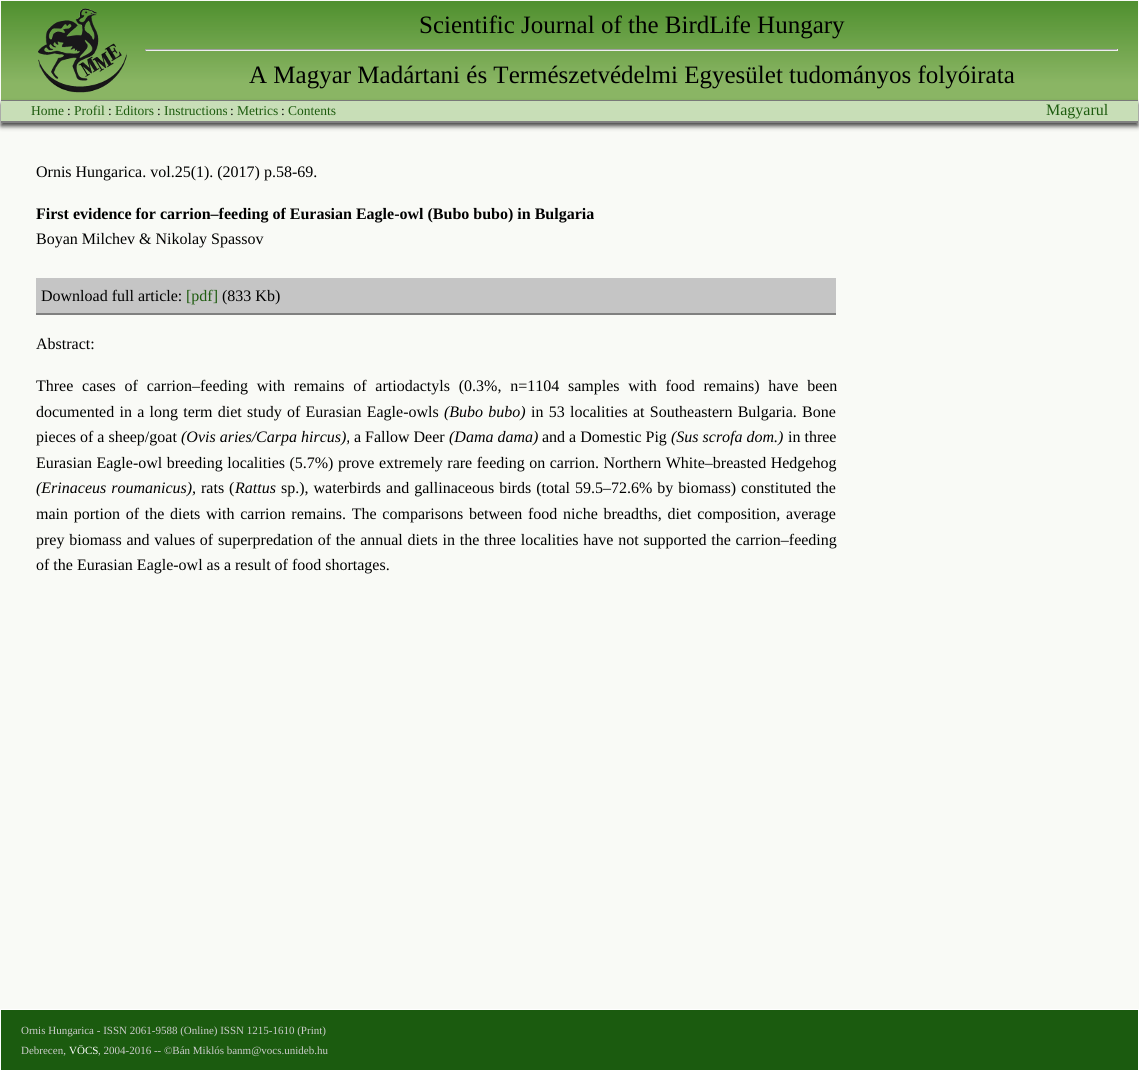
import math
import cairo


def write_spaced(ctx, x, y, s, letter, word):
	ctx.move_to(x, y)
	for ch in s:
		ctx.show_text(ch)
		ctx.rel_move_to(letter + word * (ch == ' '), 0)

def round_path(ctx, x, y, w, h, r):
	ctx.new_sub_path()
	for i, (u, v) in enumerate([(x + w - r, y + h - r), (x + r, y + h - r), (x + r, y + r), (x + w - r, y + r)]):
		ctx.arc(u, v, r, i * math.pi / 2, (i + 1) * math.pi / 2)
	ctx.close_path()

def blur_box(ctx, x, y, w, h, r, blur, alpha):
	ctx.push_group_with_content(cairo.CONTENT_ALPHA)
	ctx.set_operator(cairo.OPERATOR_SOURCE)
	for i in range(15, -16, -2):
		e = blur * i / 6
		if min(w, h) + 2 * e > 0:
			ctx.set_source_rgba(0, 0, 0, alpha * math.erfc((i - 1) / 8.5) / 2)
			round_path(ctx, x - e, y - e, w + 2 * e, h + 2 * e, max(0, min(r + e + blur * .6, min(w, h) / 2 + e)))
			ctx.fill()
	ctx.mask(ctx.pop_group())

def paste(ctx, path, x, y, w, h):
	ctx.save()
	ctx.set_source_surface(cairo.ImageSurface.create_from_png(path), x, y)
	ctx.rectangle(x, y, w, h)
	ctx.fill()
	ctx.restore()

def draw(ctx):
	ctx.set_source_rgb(1, 1, 1)
	ctx.paint()
	ctx.set_source_rgb(0.973, 0.98, 0.961)
	ctx.rectangle(0, 0, 1139, 1009)
	ctx.fill()
	paste(ctx, 'media/1.png', 1, 1, 1137, 99)
	ctx.set_source_rgb(0.502, 0.502, 0.502)
	ctx.rectangle(1, 100, 1137, 1)
	ctx.fill()
	paste(ctx, 'media/2.png', 38, 8, 89, 85)
	ctx.select_font_face('Liberation Serif')
	ctx.set_font_size(25)
	ctx.set_source_rgb(0, 0, 0)
	ctx.move_to(419, 33)
	ctx.show_text('Scientific Journal of the BirdLife Hungary')
	ctx.set_source_rgb(0.624, 0.624, 0.624)
	ctx.rectangle(145, 49, 973, 1)
	ctx.fill()
	ctx.set_source_rgb(0.933, 0.933, 0.933)
	ctx.rectangle(1117, 49, 1, 2)
	ctx.rectangle(145, 50, 973, 1)
	ctx.fill()
	ctx.set_source_rgb(0.624, 0.624, 0.624)
	ctx.rectangle(145, 49, 1, 2)
	ctx.fill()
	ctx.set_source_rgb(0, 0, 0)
	ctx.move_to(249, 83)
	ctx.show_text('A Magyar Madártani és Természetvédelmi Egyesület tudományos folyóirata')
	ctx.set_source_rgb(0, 0, 0)
	blur_box(ctx, 1, 104, 1137, 22, 0, 2.5, 0.75)
	ctx.set_source_rgb(0.784, 0.871, 0.718)
	ctx.rectangle(1, 101, 1137, 20)
	ctx.fill()
	ctx.set_source_rgb(0.502, 0.502, 0.502)
	ctx.rectangle(1, 121, 1137, 2)
	ctx.fill()
	ctx.set_font_size(13.5)
	ctx.set_source_rgb(0.114, 0.357, 0.055)
	ctx.move_to(31, 115)
	ctx.show_text('Home')
	ctx.set_source_rgb(0, 0, 0)
	ctx.move_to(67, 115)
	ctx.show_text(':')
	ctx.set_source_rgb(0.114, 0.357, 0.055)
	ctx.move_to(74, 115)
	ctx.show_text('Profil')
	ctx.set_source_rgb(0, 0, 0)
	ctx.move_to(108, 115)
	ctx.show_text(':')
	ctx.set_source_rgb(0.114, 0.357, 0.055)
	ctx.move_to(115, 115)
	ctx.show_text('Editors')
	ctx.set_source_rgb(0, 0, 0)
	ctx.move_to(157, 115)
	ctx.show_text(':')
	ctx.set_source_rgb(0.114, 0.357, 0.055)
	ctx.move_to(164, 115)
	ctx.show_text('Instructions')
	ctx.set_source_rgb(0, 0, 0)
	ctx.move_to(230, 115)
	ctx.show_text(':')
	ctx.set_source_rgb(0.114, 0.357, 0.055)
	ctx.move_to(237, 115)
	ctx.show_text('Metrics')
	ctx.set_source_rgb(0, 0, 0)
	ctx.move_to(281, 115)
	ctx.show_text(':')
	ctx.set_source_rgb(0.114, 0.357, 0.055)
	ctx.move_to(288, 115)
	ctx.show_text('Contents')
	ctx.set_font_size(16)
	ctx.move_to(1046, 115)
	ctx.show_text('Magyarul')
	ctx.set_source_rgb(0, 0, 0)
	ctx.move_to(36, 177)
	ctx.show_text('Ornis Hungarica. vol.25(1). (2017) p.58-69.')
	ctx.select_font_face('Liberation Serif', cairo.FONT_SLANT_NORMAL, cairo.FONT_WEIGHT_BOLD)
	ctx.move_to(36, 219)
	ctx.show_text('First evidence for carrion–feeding of Eurasian Eagle-owl (Bubo bubo) in Bulgaria')
	ctx.select_font_face('Liberation Serif')
	ctx.move_to(36, 244)
	ctx.show_text('Boyan Milchev & Nikolay Spassov')
	ctx.set_source_rgb(0.773, 0.773, 0.773)
	ctx.rectangle(36, 278, 800, 35)
	ctx.fill()
	ctx.set_source_rgb(0.502, 0.502, 0.502)
	ctx.rectangle(36, 313, 800, 2)
	ctx.fill()
	ctx.set_source_rgb(0, 0, 0)
	ctx.move_to(41, 301)
	ctx.show_text('Download full article:')
	ctx.set_source_rgb(0.114, 0.357, 0.055)
	ctx.move_to(186, 301)
	ctx.show_text('[pdf]')
	ctx.set_source_rgb(0, 0, 0)
	ctx.move_to(222, 301)
	ctx.show_text('(833 Kb)')
	ctx.move_to(36, 349)
	ctx.show_text('Abstract:')
	write_spaced(ctx, 36, 391, 'Three cases of carrion–feeding with remains of artiodactyls (0.3%, n=1104 samples with food remains) have been', 0, 4.75)
	write_spaced(ctx, 36, 417, 'documented in a long term diet study of Eurasian Eagle-owls', 0, 1.25)
	ctx.select_font_face('Liberation Serif', cairo.FONT_SLANT_ITALIC)
	write_spaced(ctx, 444, 417, '(Bubo bubo)', 0, 1.25)
	ctx.select_font_face('Liberation Serif')
	write_spaced(ctx, 531, 417, 'in 53 localities at Southeastern Bulgaria. Bone', 0, 1.25)
	ctx.move_to(36, 442)
	ctx.show_text('pieces of a sheep/goat')
	ctx.select_font_face('Liberation Serif', cairo.FONT_SLANT_ITALIC)
	ctx.move_to(181, 442)
	ctx.show_text('(Ovis aries/Carpa hircus),')
	ctx.select_font_face('Liberation Serif')
	ctx.move_to(354, 442)
	ctx.show_text('a Fallow Deer')
	ctx.select_font_face('Liberation Serif', cairo.FONT_SLANT_ITALIC)
	ctx.move_to(449, 442)
	ctx.show_text('(Dama dama)')
	ctx.select_font_face('Liberation Serif')
	ctx.move_to(542, 442)
	ctx.show_text('and a Domestic Pig')
	ctx.select_font_face('Liberation Serif', cairo.FONT_SLANT_ITALIC)
	ctx.move_to(671, 442)
	ctx.show_text('(Sus scrofa dom.)')
	ctx.select_font_face('Liberation Serif')
	ctx.move_to(788, 442)
	ctx.show_text('in three')
	write_spaced(ctx, 36, 468, 'Eurasian Eagle-owl breeding localities (5.7%) prove extremely rare feeding on carrion. Northern White–breasted Hedgehog', 0, 0.5)
	ctx.select_font_face('Liberation Serif', cairo.FONT_SLANT_ITALIC)
	write_spaced(ctx, 36, 493, '(Erinaceus roumanicus),', 0, 1)
	ctx.select_font_face('Liberation Serif')
	write_spaced(ctx, 201, 493, 'rats (', 0, 1)
	ctx.select_font_face('Liberation Serif', cairo.FONT_SLANT_ITALIC)
	ctx.move_to(235, 493)
	ctx.show_text('Rattus')
	ctx.select_font_face('Liberation Serif')
	write_spaced(ctx, 281, 493, 'sp.), waterbirds and gallinaceous birds (total 59.5–72.6% by biomass) constituted the', 0, 1)
	write_spaced(ctx, 36, 519, 'main portion of the diets with carrion remains. The comparisons between food niche breadths, diet composition, average', 0, 1.75)
	write_spaced(ctx, 36, 545, 'prey biomass and values of superpredation of the annual diets in the three localities have not supported the carrion–feeding', 0, 0.75)
	ctx.move_to(36, 570)
	ctx.show_text('of the Eurasian Eagle-owl as a result of food shortages.')
	ctx.set_source_rgb(0.106, 0.357, 0.059)
	ctx.rectangle(1, 1010, 1137, 60)
	ctx.fill()
	ctx.set_font_size(11)
	ctx.set_source_rgb(0.8, 0.8, 0.8)
	ctx.move_to(21, 1034)
	ctx.show_text('Ornis Hungarica - ISSN 2061-9588 (Online) ISSN 1215-1610 (Print)')
	ctx.move_to(21, 1054)
	ctx.show_text('Debrecen,')
	ctx.set_source_rgb(1, 1, 1)
	ctx.move_to(69, 1054)
	ctx.show_text('VÖCS')
	ctx.set_source_rgb(0.8, 0.8, 0.8)
	ctx.move_to(98, 1054)
	ctx.show_text(', 2004-2016 -- ©Bán Miklós banm@vocs.unideb.hu')


surface = cairo.ImageSurface(cairo.FORMAT_RGB24, 1139, 1071)
ctx = cairo.Context(surface)
options = cairo.FontOptions()
options.set_hint_metrics(cairo.HINT_METRICS_OFF)
options.set_hint_style(cairo.HINT_STYLE_NONE)
ctx.set_font_options(options)
ctx.set_miter_limit(4)
draw(ctx)
surface.write_to_png('image.png')
